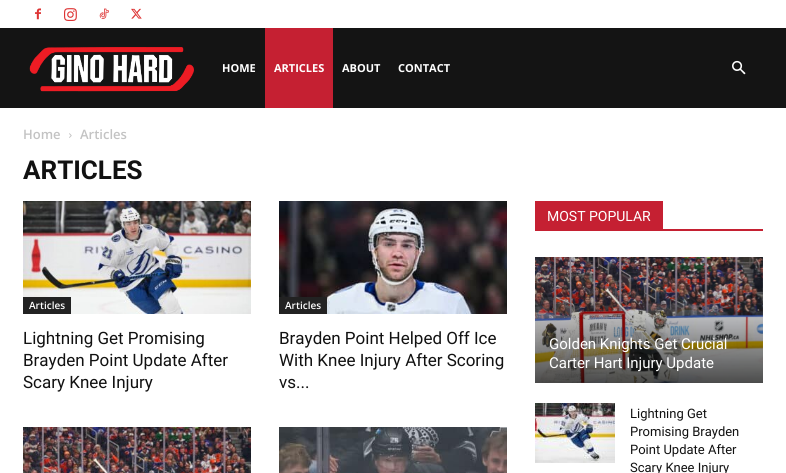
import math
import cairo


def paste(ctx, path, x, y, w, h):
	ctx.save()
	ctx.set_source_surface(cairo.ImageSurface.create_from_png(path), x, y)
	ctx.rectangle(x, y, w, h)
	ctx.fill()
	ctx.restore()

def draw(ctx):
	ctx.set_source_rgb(1, 1, 1)
	ctx.paint()
	paste(ctx, 'media/1.png', 35, 8, 6, 12)
	paste(ctx, 'media/2.png', 64, 8, 13, 13)
	paste(ctx, 'media/3.png', 99, 8, 10, 11)
	paste(ctx, 'media/4.png', 131, 8, 11, 11)
	ctx.set_source_rgb(0.082, 0.082, 0.082)
	ctx.rectangle(0, 28, 786, 80)
	ctx.fill()
	paste(ctx, 'media/5.png', 29, 47, 165, 45)
	ctx.select_font_face('Open Sans', cairo.FONT_SLANT_NORMAL, cairo.FONT_WEIGHT_BOLD)
	ctx.set_font_size(11)
	ctx.set_source_rgb(1, 1, 1)
	ctx.move_to(222, 72)
	ctx.show_text('HOME')
	ctx.set_source_rgb(0.773, 0.125, 0.196)
	ctx.rectangle(265, 28, 68, 80)
	ctx.fill()
	ctx.set_source_rgb(1, 1, 1)
	for x, y, s in [
		(274, 72, 'ARTICLES'),
		(342, 72, 'ABOUT'),
		(398, 72, 'CONTACT'),
	]:
		ctx.move_to(x, y)
		ctx.show_text(s)
	paste(ctx, 'media/6.png', 732, 60, 14, 15)
	ctx.select_font_face('Open Sans SemiBold')
	ctx.set_font_size(13)
	ctx.set_source_rgb(0.765, 0.765, 0.765)
	ctx.move_to(23, 139)
	ctx.show_text('Home')
	paste(ctx, 'media/7.png', 69, 133, 3, 5)
	ctx.move_to(80, 139)
	ctx.show_text('Articles')
	ctx.select_font_face('Roboto', cairo.FONT_SLANT_NORMAL, cairo.FONT_WEIGHT_BOLD)
	ctx.set_font_size(26)
	ctx.set_source_rgb(0.067, 0.067, 0.067)
	ctx.move_to(23, 179)
	ctx.show_text('ARTICLES')
	paste(ctx, 'media/8.png', 23, 201, 228, 113)
	ctx.set_source_rgb(0.133, 0.133, 0.133)
	ctx.rectangle(23, 297, 48, 17)
	ctx.fill()
	ctx.select_font_face('Open Sans SemiBold')
	ctx.set_font_size(10)
	ctx.set_source_rgb(1, 1, 1)
	ctx.move_to(29, 309)
	ctx.show_text('Articles')
	ctx.select_font_face('Roboto')
	ctx.set_font_size(17)
	ctx.set_source_rgb(0.067, 0.067, 0.067)
	for x, y, s in [
		(23, 344, 'Lightning Get Promising'),
		(23, 366, 'Brayden Point Update After'),
		(23, 388, 'Scary Knee Injury'),
	]:
		ctx.move_to(x, y)
		ctx.show_text(s)
	paste(ctx, 'media/9.png', 279, 201, 228, 113)
	ctx.set_source_rgb(0.133, 0.133, 0.133)
	ctx.rectangle(279, 297, 48, 17)
	ctx.fill()
	ctx.select_font_face('Open Sans SemiBold')
	ctx.set_font_size(10)
	ctx.set_source_rgb(1, 1, 1)
	ctx.move_to(285, 309)
	ctx.show_text('Articles')
	ctx.select_font_face('Roboto')
	ctx.set_font_size(17)
	ctx.set_source_rgb(0.067, 0.067, 0.067)
	for x, y, s in [
		(279, 344, 'Brayden Point Helped Off Ice'),
		(279, 366, 'With Knee Injury After Scoring'),
		(279, 388, 'vs...'),
	]:
		ctx.move_to(x, y)
		ctx.show_text(s)
	paste(ctx, 'media/10.png', 23, 427, 228, 46)
	paste(ctx, 'media/11.png', 279, 427, 228, 46)
	ctx.set_source_rgb(0.773, 0.125, 0.196)
	ctx.rectangle(535, 229, 228, 2)
	ctx.fill()
	ctx.rectangle(535, 201, 128, 28)
	ctx.fill()
	ctx.set_font_size(14)
	ctx.set_source_rgb(1, 1, 1)
	ctx.move_to(547, 221)
	ctx.show_text('MOST POPULAR')
	paste(ctx, 'media/12.png', 535, 257, 228, 126)
	gradient = cairo.LinearGradient(649, 282, 649, 383)
	gradient.add_color_stop_rgba(0, 0, 0, 0, 0)
	gradient.add_color_stop_rgba(1, 0, 0, 0, 0.7)
	ctx.set_source(gradient)
	ctx.rectangle(535, 285, 228, 98)
	ctx.fill()
	ctx.set_font_size(15)
	ctx.set_source_rgb(1, 1, 1)
	ctx.move_to(549, 349)
	ctx.show_text('Golden Knights Get Crucial')
	ctx.move_to(549, 368)
	ctx.show_text('Carter Hart Injury Update')
	paste(ctx, 'media/13.png', 535, 403, 80, 60)
	ctx.set_font_size(13)
	ctx.set_source_rgb(0.067, 0.067, 0.067)
	for x, y, s in [
		(630, 418, 'Lightning Get'),
		(630, 436, 'Promising Brayden'),
		(630, 454, 'Point Update After'),
		(630, 472, 'Scary Knee Injury'),
	]:
		ctx.move_to(x, y)
		ctx.show_text(s)


surface = cairo.ImageSurface(cairo.FORMAT_RGB24, 786, 473)
ctx = cairo.Context(surface)
options = cairo.FontOptions()
options.set_hint_metrics(cairo.HINT_METRICS_OFF)
options.set_hint_style(cairo.HINT_STYLE_NONE)
ctx.set_font_options(options)
ctx.set_miter_limit(4)
draw(ctx)
surface.write_to_png('image.png')
